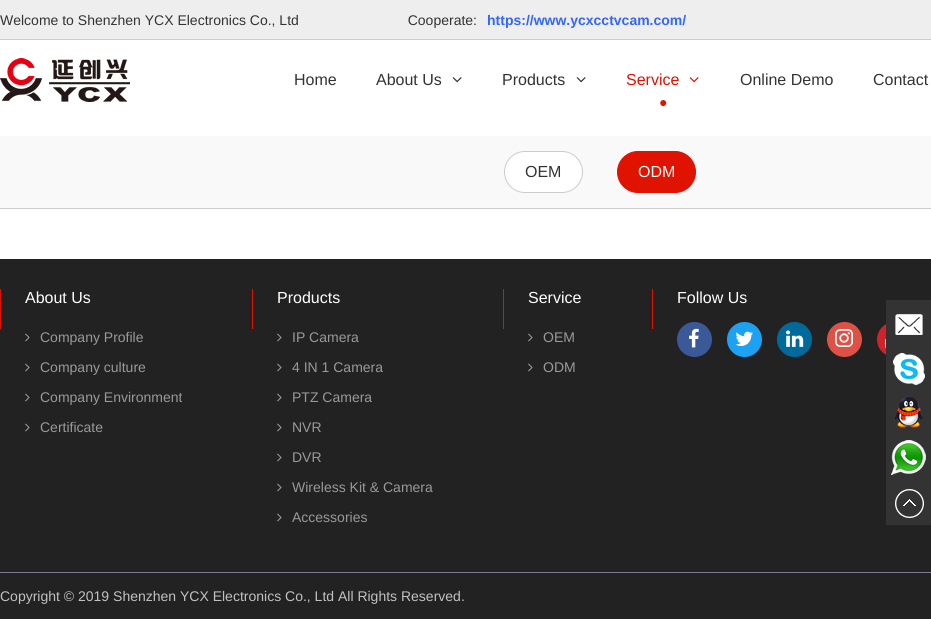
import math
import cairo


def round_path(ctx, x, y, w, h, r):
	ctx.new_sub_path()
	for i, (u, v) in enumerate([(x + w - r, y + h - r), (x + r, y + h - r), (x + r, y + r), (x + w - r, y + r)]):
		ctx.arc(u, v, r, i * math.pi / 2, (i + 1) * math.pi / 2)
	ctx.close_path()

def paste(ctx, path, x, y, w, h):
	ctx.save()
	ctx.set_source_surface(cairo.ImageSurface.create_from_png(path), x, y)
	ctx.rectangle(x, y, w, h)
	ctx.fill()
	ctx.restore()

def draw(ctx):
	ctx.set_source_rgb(1, 1, 1)
	ctx.paint()
	ctx.set_source_rgb(0.933, 0.933, 0.933)
	ctx.rectangle(0, 0, 931, 39)
	ctx.fill()
	ctx.set_source_rgb(0.8, 0.8, 0.8)
	ctx.rectangle(0, 39, 931, 1)
	ctx.fill()
	ctx.select_font_face('Liberation Sans')
	ctx.set_font_size(14)
	ctx.set_source_rgb(0.2, 0.2, 0.2)
	ctx.move_to(0, 25)
	ctx.show_text('Welcome to Shenzhen YCX Electronics Co., Ltd                            Cooperate:')
	ctx.select_font_face('Liberation Sans', cairo.FONT_SLANT_NORMAL, cairo.FONT_WEIGHT_BOLD)
	ctx.set_source_rgb(0.2, 0.4, 1)
	ctx.move_to(487, 25)
	ctx.show_text('https://www.ycxcctvcam.com/')
	paste(ctx, 'media/1.png', 0, 58, 130, 44)
	ctx.select_font_face('Liberation Sans')
	ctx.set_font_size(16)
	ctx.set_source_rgb(0.2, 0.2, 0.2)
	ctx.move_to(294, 85)
	ctx.show_text('Home')
	ctx.move_to(376, 85)
	ctx.show_text('About Us')
	paste(ctx, 'media/2.png', 452, 77, 10, 6)
	ctx.move_to(502, 85)
	ctx.show_text('Products')
	paste(ctx, 'media/2.png', 576, 77, 10, 6)
	ctx.set_source_rgb(0.878, 0.071, 0)
	ctx.move_to(626, 85)
	ctx.show_text('Service')
	paste(ctx, 'media/3.png', 689, 77, 10, 6)
	ctx.set_font_size(14)
	ctx.move_to(659, 107)
	ctx.show_text('●')
	ctx.set_font_size(16)
	ctx.set_source_rgb(0.2, 0.2, 0.2)
	ctx.move_to(740, 85)
	ctx.show_text('Online Demo')
	ctx.move_to(873, 85)
	ctx.show_text('Contact')
	ctx.set_source_rgb(0.976, 0.976, 0.976)
	ctx.rectangle(0, 136, 931, 72)
	ctx.fill()
	ctx.set_source_rgb(0.8, 0.8, 0.8)
	ctx.rectangle(0, 208, 931, 1)
	ctx.fill()
	ctx.set_source_rgb(1, 1, 1)
	round_path(ctx, 504.5, 151.5, 78, 41, 20.5)
	ctx.fill_preserve()
	ctx.set_source_rgb(0.8, 0.8, 0.8)
	ctx.set_line_width(1)
	ctx.stroke()
	ctx.set_source_rgb(0.2, 0.2, 0.2)
	ctx.move_to(525, 177)
	ctx.show_text('OEM')
	ctx.set_source_rgb(0.878, 0.071, 0)
	round_path(ctx, 617.5, 151.5, 78, 41, 20.5)
	ctx.fill_preserve()
	ctx.stroke()
	ctx.set_source_rgb(1, 1, 1)
	ctx.move_to(638, 177)
	ctx.show_text('ODM')
	ctx.set_source_rgb(0.133, 0.133, 0.133)
	ctx.rectangle(0, 259, 931, 360)
	ctx.fill()
	ctx.set_source_rgb(0.878, 0.071, 0)
	ctx.rectangle(0, 289, 1, 40)
	ctx.fill()
	ctx.set_source_rgb(1, 1, 1)
	ctx.move_to(25, 303)
	ctx.show_text('About Us')
	paste(ctx, 'media/4.png', 25, 333, 5, 9)
	ctx.set_font_size(14)
	ctx.set_source_rgb(0.6, 0.6, 0.6)
	ctx.move_to(40, 342)
	ctx.show_text('Company Profile')
	paste(ctx, 'media/4.png', 25, 363, 5, 9)
	ctx.move_to(40, 372)
	ctx.show_text('Company culture')
	paste(ctx, 'media/4.png', 25, 393, 5, 9)
	ctx.save()
	ctx.rectangle(0, 289, 182, 153)
	ctx.clip()
	ctx.move_to(40, 402)
	ctx.show_text('Company Environment')
	ctx.restore()
	paste(ctx, 'media/4.png', 25, 423, 5, 9)
	ctx.move_to(40, 432)
	ctx.show_text('Certificate')
	ctx.set_source_rgb(0.878, 0.071, 0)
	ctx.rectangle(252, 289, 1, 40)
	ctx.fill()
	ctx.set_font_size(16)
	ctx.set_source_rgb(1, 1, 1)
	ctx.move_to(277, 303)
	ctx.show_text('Products')
	paste(ctx, 'media/4.png', 277, 333, 5, 9)
	ctx.set_font_size(14)
	ctx.set_source_rgb(0.6, 0.6, 0.6)
	ctx.move_to(292, 342)
	ctx.show_text('IP Camera')
	paste(ctx, 'media/4.png', 277, 363, 5, 9)
	ctx.move_to(292, 372)
	ctx.show_text('4 IN 1 Camera')
	paste(ctx, 'media/4.png', 277, 393, 5, 9)
	ctx.move_to(292, 402)
	ctx.show_text('PTZ Camera')
	paste(ctx, 'media/4.png', 277, 423, 5, 9)
	ctx.move_to(292, 432)
	ctx.show_text('NVR')
	paste(ctx, 'media/4.png', 277, 453, 5, 9)
	ctx.move_to(292, 462)
	ctx.show_text('DVR')
	paste(ctx, 'media/4.png', 277, 483, 5, 9)
	ctx.move_to(292, 492)
	ctx.show_text('Wireless Kit & Camera')
	paste(ctx, 'media/4.png', 277, 513, 5, 9)
	ctx.move_to(292, 522)
	ctx.show_text('Accessories')
	ctx.set_source_rgb(0.878, 0.071, 0)
	ctx.rectangle(503, 289, 1, 40)
	ctx.fill()
	ctx.set_font_size(16)
	ctx.set_source_rgb(1, 1, 1)
	ctx.move_to(528, 303)
	ctx.show_text('Service')
	paste(ctx, 'media/4.png', 528, 333, 5, 9)
	ctx.set_font_size(14)
	ctx.set_source_rgb(0.6, 0.6, 0.6)
	ctx.move_to(543, 342)
	ctx.show_text('OEM')
	paste(ctx, 'media/4.png', 528, 363, 5, 9)
	ctx.move_to(543, 372)
	ctx.show_text('ODM')
	ctx.set_source_rgb(0.878, 0.071, 0)
	ctx.rectangle(652, 289, 1, 40)
	ctx.fill()
	ctx.set_font_size(16)
	ctx.set_source_rgb(1, 1, 1)
	ctx.move_to(677, 303)
	ctx.show_text('Follow Us')
	ctx.set_source_rgb(0.231, 0.349, 0.596)
	ctx.new_path()
	ctx.arc(694.5, 339.5, 17.5, 0, 2 * math.pi)
	ctx.fill()
	paste(ctx, 'media/5.png', 689, 328, 10, 20)
	ctx.set_source_rgb(0.114, 0.631, 0.953)
	ctx.arc(744.5, 339.5, 17.5, 0, 2 * math.pi)
	ctx.fill()
	paste(ctx, 'media/6.png', 735, 331, 18, 15)
	ctx.set_source_rgb(0, 0.416, 0.604)
	ctx.arc(794.5, 339.5, 17.5, 0, 2 * math.pi)
	ctx.fill()
	paste(ctx, 'media/7.png', 786, 330, 18, 17)
	ctx.set_source_rgb(0.871, 0.318, 0.271)
	ctx.arc(844.5, 339.5, 17.5, 0, 2 * math.pi)
	ctx.fill()
	paste(ctx, 'media/8.png', 835, 329, 18, 18)
	ctx.set_source_rgb(0.82, 0.133, 0.161)
	ctx.arc(894.5, 339.5, 17.5, 0, 2 * math.pi)
	ctx.fill()
	paste(ctx, 'media/9.png', 885, 339, 1, 9)
	ctx.set_source_rgb(0.514, 0.482, 0.576)
	ctx.rectangle(0, 572, 931, 1)
	ctx.fill()
	ctx.set_font_size(14)
	ctx.set_source_rgb(0.757, 0.757, 0.757)
	ctx.move_to(0, 601)
	ctx.show_text('Copyright © 2019 Shenzhen YCX Electronics Co., Ltd All Rights Reserved.')
	ctx.set_source_rgb(0.2, 0.2, 0.2)
	ctx.rectangle(886, 300, 45, 225)
	ctx.fill()
	paste(ctx, 'media/10.png', 895, 314, 28, 21)
	paste(ctx, 'media/11.png', 893, 353, 32, 32)
	paste(ctx, 'media/12.png', 894, 396, 29, 32)
	paste(ctx, 'media/13.png', 891, 440, 35, 35)
	paste(ctx, 'media/14.png', 895, 489, 29, 29)


surface = cairo.ImageSurface(cairo.FORMAT_RGB24, 931, 619)
ctx = cairo.Context(surface)
options = cairo.FontOptions()
options.set_hint_metrics(cairo.HINT_METRICS_OFF)
options.set_hint_style(cairo.HINT_STYLE_NONE)
ctx.set_font_options(options)
ctx.set_miter_limit(4)
draw(ctx)
surface.write_to_png('image.png')
